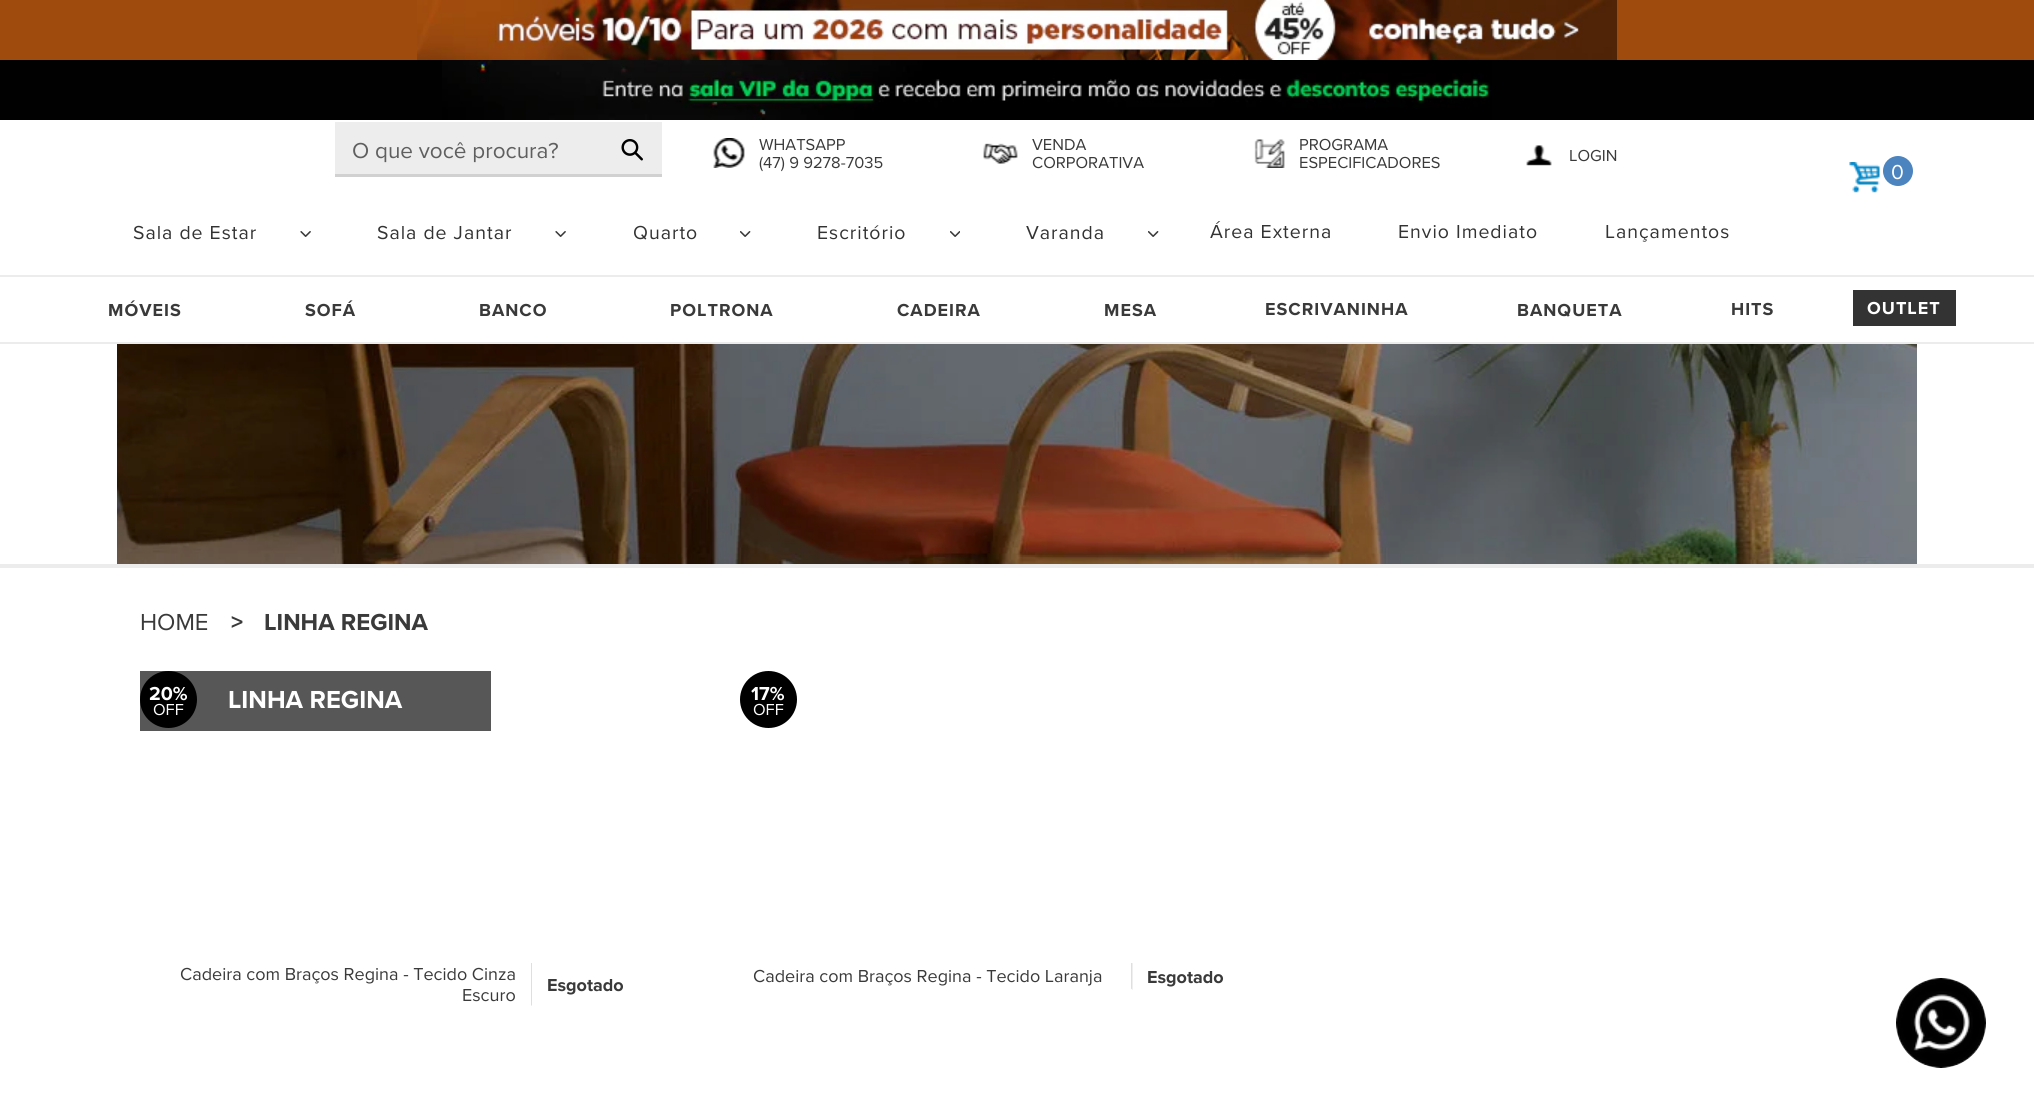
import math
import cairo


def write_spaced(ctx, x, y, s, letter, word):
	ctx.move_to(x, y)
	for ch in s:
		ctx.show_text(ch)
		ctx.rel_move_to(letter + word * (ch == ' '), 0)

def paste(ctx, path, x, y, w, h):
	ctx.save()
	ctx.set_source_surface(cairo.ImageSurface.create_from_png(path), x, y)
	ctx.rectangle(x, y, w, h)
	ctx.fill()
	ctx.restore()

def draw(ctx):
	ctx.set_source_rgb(1, 1, 1)
	ctx.paint()
	ctx.set_source_rgb(0.922, 0.922, 0.922)
	ctx.rectangle(0, 342, 2034, 2)
	ctx.fill()
	ctx.set_source_rgb(0.624, 0.294, 0.051)
	ctx.rectangle(0, 0, 2034, 60)
	ctx.fill()
	paste(ctx, 'media/1.png', 417, 0, 1200, 60)
	ctx.set_source_rgb(0.004, 0.004, 0.004)
	ctx.rectangle(0, 60, 2034, 60)
	ctx.fill()
	paste(ctx, 'media/2.png', 442, 60, 1050, 60)
	ctx.set_source_rgb(0.929, 0.929, 0.929)
	ctx.rectangle(335, 122, 327, 52)
	ctx.fill()
	ctx.set_source_rgb(0.82, 0.82, 0.82)
	ctx.rectangle(335, 174, 327, 3)
	ctx.fill()
	ctx.select_font_face('Proxima Nova')
	ctx.set_font_size(22.5)
	ctx.set_source_rgb(0.373, 0.373, 0.373)
	ctx.move_to(352, 158)
	ctx.show_text('O que você procura?')
	paste(ctx, 'media/3.png', 621, 139, 22, 22)
	paste(ctx, 'media/4.png', 713, 138, 32, 30)
	ctx.set_font_size(16.5)
	ctx.set_source_rgb(0.227, 0.227, 0.227)
	ctx.move_to(759, 150)
	ctx.show_text('WHATSAPP')
	ctx.move_to(759, 168)
	ctx.show_text('(47) 9 9278-7035')
	paste(ctx, 'media/5.png', 983, 143, 35, 21)
	ctx.move_to(1032, 150)
	ctx.show_text('VENDA')
	ctx.move_to(1032, 168)
	ctx.show_text('CORPORATIVA')
	paste(ctx, 'media/6.png', 1254, 139, 31, 29)
	ctx.move_to(1299, 150)
	ctx.show_text('PROGRAMA')
	ctx.move_to(1299, 168)
	ctx.show_text('ESPECIFICADORES')
	paste(ctx, 'media/7.png', 1526, 145, 26, 21)
	ctx.move_to(1569, 161)
	ctx.show_text('LOGIN')
	paste(ctx, 'media/8.png', 1849, 162, 31, 31)
	ctx.set_source_rgb(0.298, 0.518, 0.749)
	ctx.arc(1898, 171, 15, 0, 2 * math.pi)
	ctx.fill()
	ctx.set_font_size(21)
	ctx.set_source_rgb(1, 1, 1)
	ctx.move_to(1891, 179)
	ctx.show_text('0')
	ctx.set_font_size(19.5)
	ctx.set_source_rgb(0.2, 0.2, 0.2)
	write_spaced(ctx, 133, 239, 'Sala de Estar', 1, 0)
	paste(ctx, 'media/9.png', 300, 231, 11, 6)
	write_spaced(ctx, 377, 239, 'Sala de Jantar', 1, 0)
	paste(ctx, 'media/9.png', 555, 231, 11, 6)
	write_spaced(ctx, 633, 239, 'Quarto', 1, 0)
	paste(ctx, 'media/10.png', 740, 231, 11, 6)
	write_spaced(ctx, 817, 239, 'Escritório', 1, 0)
	paste(ctx, 'media/11.png', 950, 231, 10, 6)
	write_spaced(ctx, 1026, 239, 'Varanda', 1, 0)
	paste(ctx, 'media/10.png', 1148, 231, 11, 6)
	for x, y, s in [
		(1210, 238, 'Área Externa'),
		(1398, 238, 'Envio Imediato'),
		(1605, 238, 'Lançamentos'),
	]:
		write_spaced(ctx, x, y, s, 1, 0)
	ctx.set_source_rgb(0.922, 0.922, 0.922)
	ctx.rectangle(0, 275, 2034, 2)
	ctx.fill()
	ctx.select_font_face('Proxima Nova', cairo.FONT_SLANT_NORMAL, cairo.FONT_WEIGHT_BOLD)
	ctx.set_font_size(18)
	ctx.set_source_rgb(0.227, 0.227, 0.227)
	for x, y, s in [
		(108, 316, 'MÓVEIS'),
		(305, 316, 'SOFÁ'),
		(479, 316, 'BANCO'),
		(670, 316, 'POLTRONA'),
		(897, 316, 'CADEIRA'),
		(1104, 316, 'MESA'),
		(1265, 315, 'ESCRIVANINHA'),
		(1517, 316, 'BANQUETA'),
		(1731, 315, 'HITS'),
	]:
		write_spaced(ctx, x, y, s, 1, 0)
	ctx.set_source_rgb(0.2, 0.2, 0.2)
	ctx.rectangle(1853, 290, 103, 36)
	ctx.fill()
	ctx.set_source_rgb(1, 1, 1)
	write_spaced(ctx, 1867, 314, 'OUTLET', 1, 0)
	paste(ctx, 'media/12.png', 117, 344, 1800, 220)
	ctx.set_source_rgb(0.922, 0.922, 0.922)
	ctx.rectangle(0, 564, 2034, 4)
	ctx.fill()
	ctx.select_font_face('Proxima Nova')
	ctx.set_font_size(24)
	ctx.set_source_rgb(0.227, 0.227, 0.227)
	ctx.move_to(140, 630)
	ctx.show_text('HOME')
	ctx.select_font_face('Proxima Nova', cairo.FONT_SLANT_NORMAL, cairo.FONT_WEIGHT_BOLD)
	ctx.move_to(231, 630)
	ctx.show_text('>')
	ctx.move_to(264, 630)
	ctx.show_text('LINHA REGINA')
	ctx.set_source_rgb(0.341, 0.341, 0.341)
	ctx.rectangle(140, 671, 351, 60)
	ctx.fill()
	ctx.set_source_rgb(0, 0, 0)
	ctx.arc(168.5, 699.5, 28.5, 0, 2 * math.pi)
	ctx.fill()
	ctx.set_font_size(19.5)
	ctx.set_source_rgb(1, 1, 1)
	ctx.move_to(149, 700)
	ctx.show_text('20%')
	ctx.select_font_face('Proxima Nova')
	ctx.set_font_size(16.5)
	ctx.move_to(153, 715)
	ctx.show_text('OFF')
	ctx.set_source_rgb(0.875, 0.875, 0.875)
	ctx.new_path()
	ctx.move_to(532, 963)
	ctx.line_to(532, 1006)
	ctx.line_to(531, 1005)
	ctx.line_to(531, 963)
	ctx.close_path()
	ctx.fill()
	ctx.set_font_size(18)
	ctx.set_source_rgb(0.227, 0.227, 0.227)
	ctx.move_to(180, 980)
	ctx.show_text('Cadeira com Braços Regina - Tecido Cinza')
	ctx.move_to(462, 1001)
	ctx.show_text('Escuro')
	ctx.select_font_face('Proxima Nova', cairo.FONT_SLANT_NORMAL, cairo.FONT_WEIGHT_BOLD)
	ctx.move_to(547, 991)
	ctx.show_text('Esgotado')
	ctx.set_source_rgb(0, 0, 0)
	ctx.new_path()
	ctx.arc(768.5, 699.5, 28.5, 0, 2 * math.pi)
	ctx.fill()
	ctx.set_font_size(19.5)
	ctx.set_source_rgb(1, 1, 1)
	ctx.move_to(751, 700)
	ctx.show_text('17%')
	ctx.select_font_face('Proxima Nova')
	ctx.set_font_size(16.5)
	ctx.move_to(753, 715)
	ctx.show_text('OFF')
	ctx.set_source_rgb(0.875, 0.875, 0.875)
	ctx.new_path()
	ctx.move_to(1132.5, 963)
	ctx.line_to(1132.5, 990)
	ctx.line_to(1131, 988.5)
	ctx.line_to(1131, 963)
	ctx.close_path()
	ctx.fill()
	ctx.set_font_size(18)
	ctx.set_source_rgb(0.227, 0.227, 0.227)
	ctx.move_to(753, 982)
	ctx.show_text('Cadeira com Braços Regina - Tecido Laranja')
	ctx.select_font_face('Proxima Nova', cairo.FONT_SLANT_NORMAL, cairo.FONT_WEIGHT_BOLD)
	ctx.move_to(1147, 983)
	ctx.show_text('Esgotado')
	ctx.set_font_size(25.5)
	ctx.set_source_rgb(1, 1, 1)
	ctx.move_to(228, 708)
	ctx.show_text('LINHA REGINA')
	paste(ctx, 'media/13.png', 1896, 978, 90, 90)


surface = cairo.ImageSurface(cairo.FORMAT_RGB24, 2034, 1100)
ctx = cairo.Context(surface)
options = cairo.FontOptions()
options.set_hint_metrics(cairo.HINT_METRICS_OFF)
options.set_hint_style(cairo.HINT_STYLE_NONE)
ctx.set_font_options(options)
ctx.set_miter_limit(4)
draw(ctx)
surface.write_to_png('image.png')
